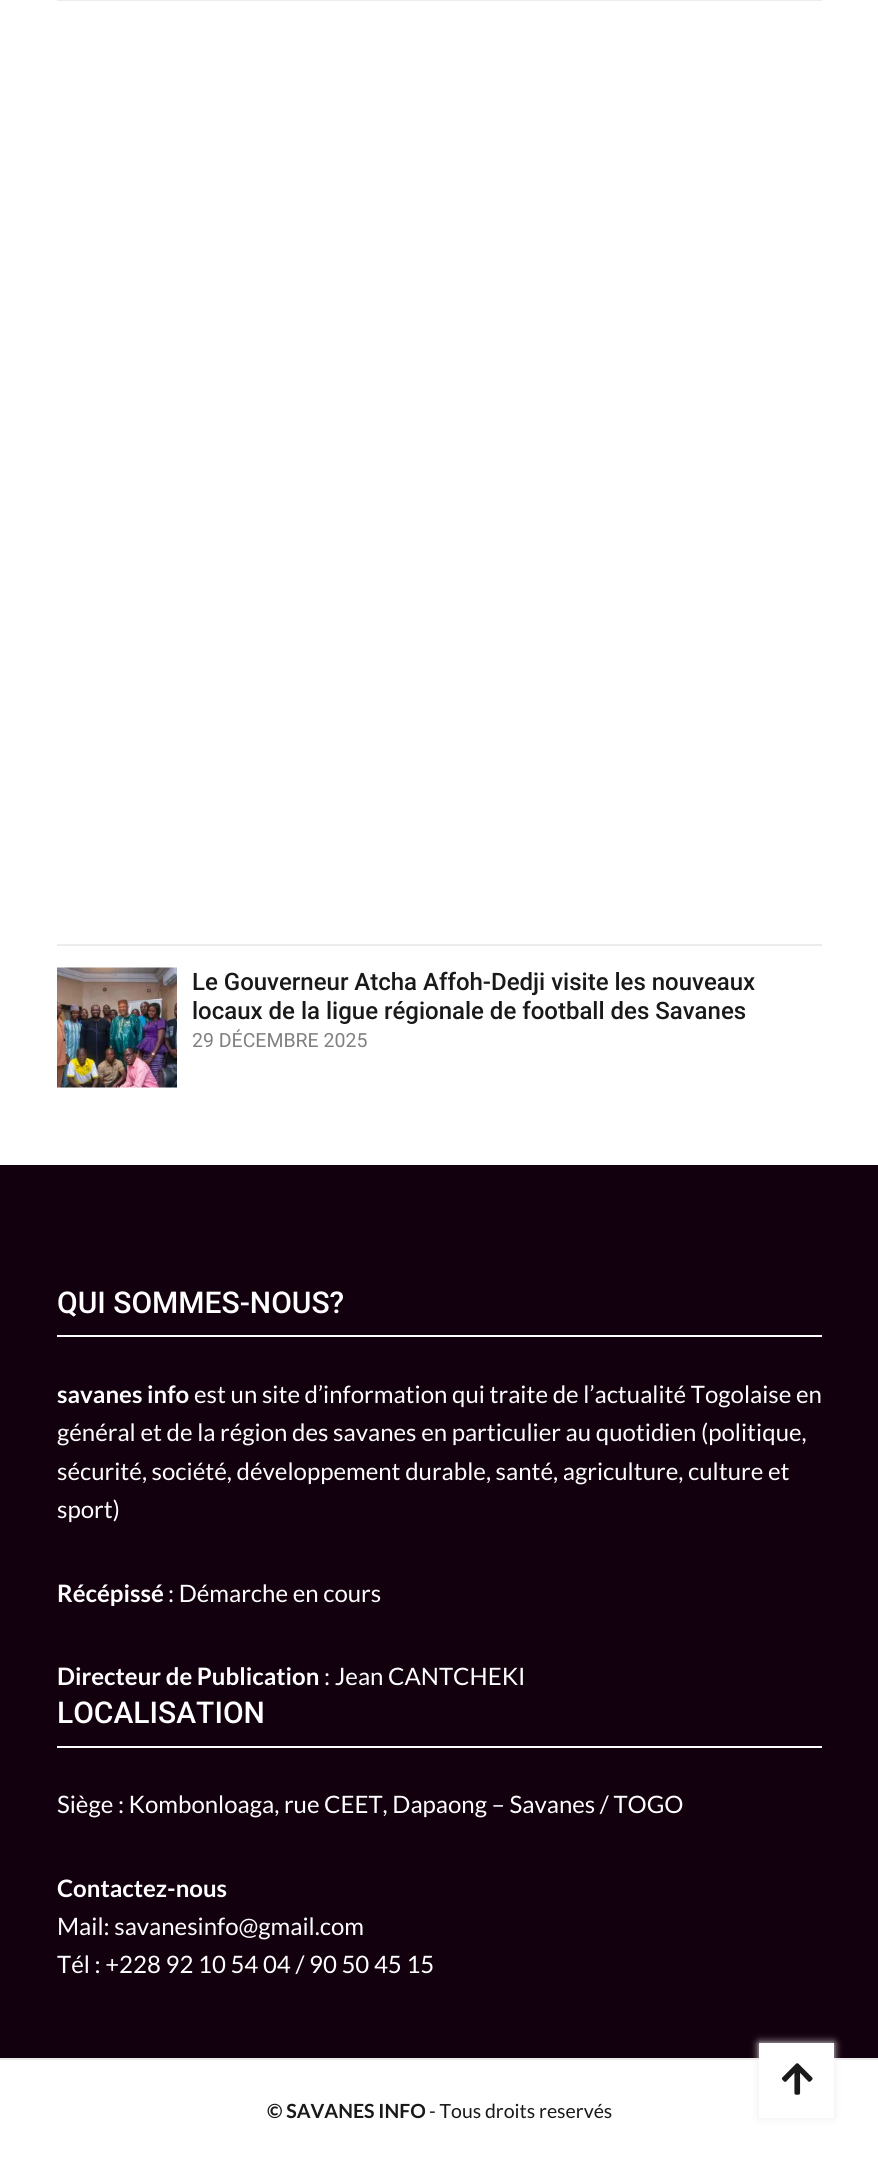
import math
import cairo


def round_path(ctx, x, y, w, h, r):
	ctx.new_sub_path()
	for i, (u, v) in enumerate([(x + w - r, y + h - r), (x + r, y + h - r), (x + r, y + r), (x + w - r, y + r)]):
		ctx.arc(u, v, r, i * math.pi / 2, (i + 1) * math.pi / 2)
	ctx.close_path()

def blur_box(ctx, x, y, w, h, r, blur, alpha):
	ctx.push_group_with_content(cairo.CONTENT_ALPHA)
	ctx.set_operator(cairo.OPERATOR_SOURCE)
	for i in range(15, -16, -2):
		e = blur * i / 6
		if min(w, h) + 2 * e > 0:
			ctx.set_source_rgba(0, 0, 0, alpha * math.erfc((i - 1) / 8.5) / 2)
			round_path(ctx, x - e, y - e, w + 2 * e, h + 2 * e, max(0, min(r + e + blur * .6, min(w, h) / 2 + e)))
			ctx.fill()
	ctx.mask(ctx.pop_group())

def paste(ctx, path, x, y, w, h):
	ctx.save()
	ctx.set_source_surface(cairo.ImageSurface.create_from_png(path), x, y)
	ctx.rectangle(x, y, w, h)
	ctx.fill()
	ctx.restore()

def draw(ctx):
	ctx.set_source_rgb(1, 1, 1)
	ctx.paint()
	ctx.set_source_rgb(0.922, 0.922, 0.922)
	ctx.rectangle(57, 0, 765, 1)
	ctx.fill()
	ctx.rectangle(57, 944, 765, 2)
	ctx.fill()
	paste(ctx, 'media/1.png', 57, 967, 120, 121)
	ctx.select_font_face('Roboto Medium')
	ctx.set_font_size(24)
	ctx.set_source_rgb(0.098, 0.098, 0.098)
	ctx.move_to(192, 990)
	ctx.show_text('Le Gouverneur Atcha Affoh-Dedji visite les nouveaux')
	ctx.move_to(192, 1019)
	ctx.show_text('locaux de la ligue régionale de football des Savanes')
	ctx.select_font_face('Roboto')
	ctx.set_font_size(19.5)
	ctx.set_source_rgb(0.502, 0.502, 0.502)
	ctx.move_to(192, 1047)
	ctx.show_text('29 DÉCEMBRE 2025')
	ctx.set_source_rgb(0.078, 0, 0.055)
	ctx.rectangle(0, 1165, 878, 893)
	ctx.fill()
	ctx.set_source_rgb(1, 1, 1)
	ctx.rectangle(57, 1335, 765, 2)
	ctx.fill()
	ctx.select_font_face('Roboto Medium')
	ctx.set_font_size(30)
	ctx.move_to(57, 1313)
	ctx.show_text('QUI SOMMES-NOUS?')
	ctx.select_font_face('Lato', cairo.FONT_SLANT_NORMAL, cairo.FONT_WEIGHT_BOLD)
	ctx.set_font_size(24)
	ctx.move_to(57, 1403)
	ctx.show_text('savanes info')
	ctx.select_font_face('Lato')
	for x, y, s in [
		(194, 1403, 'est un site d’information qui traite de l’actualité Togolaise en'),
		(57, 1441, 'général et de la région des savanes en particulier au quotidien (politique,'),
		(57, 1480, 'sécurité, société, développement durable, santé, agriculture, culture et'),
		(57, 1518, 'sport)'),
	]:
		ctx.move_to(x, y)
		ctx.show_text(s)
	ctx.select_font_face('Lato', cairo.FONT_SLANT_NORMAL, cairo.FONT_WEIGHT_BOLD)
	ctx.move_to(57, 1602)
	ctx.show_text('Récépissé')
	ctx.select_font_face('Lato')
	ctx.move_to(168, 1602)
	ctx.show_text(': Démarche en cours')
	ctx.select_font_face('Lato', cairo.FONT_SLANT_NORMAL, cairo.FONT_WEIGHT_BOLD)
	ctx.move_to(57, 1685)
	ctx.show_text('Directeur de Publication')
	ctx.select_font_face('Lato')
	ctx.move_to(324, 1685)
	ctx.show_text(': Jean CANTCHEKI')
	ctx.rectangle(57, 1746, 765, 2)
	ctx.fill()
	ctx.select_font_face('Roboto Medium')
	ctx.set_font_size(30)
	ctx.move_to(57, 1723)
	ctx.show_text('LOCALISATION')
	ctx.select_font_face('Lato')
	ctx.set_font_size(24)
	ctx.move_to(57, 1813)
	ctx.show_text('Siège : Kombonloaga, rue CEET, Dapaong – Savanes / TOGO')
	ctx.select_font_face('Lato', cairo.FONT_SLANT_NORMAL, cairo.FONT_WEIGHT_BOLD)
	ctx.move_to(57, 1897)
	ctx.show_text('Contactez-nous')
	ctx.select_font_face('Lato')
	ctx.move_to(57, 1935)
	ctx.show_text('Mail: savanesinfo@gmail.com')
	ctx.move_to(57, 1973)
	ctx.show_text('Tél : +228 92 10 54 04 / 90 50 45 15')
	ctx.set_source_rgb(0.922, 0.922, 0.922)
	ctx.rectangle(0, 2058, 878, 2)
	ctx.fill()
	ctx.select_font_face('Lato', cairo.FONT_SLANT_NORMAL, cairo.FONT_WEIGHT_BOLD)
	ctx.set_font_size(19.5)
	ctx.set_source_rgb(0.098, 0.098, 0.098)
	ctx.move_to(267, 2118)
	ctx.show_text('© SAVANES INFO')
	ctx.select_font_face('Lato')
	ctx.move_to(429, 2118)
	ctx.show_text('- Tous droits reservés')
	ctx.set_source_rgb(0.922, 0.922, 0.922)
	blur_box(ctx, 759, 2043, 75, 75, 0, 4, 1)
	ctx.set_source_rgb(1, 1, 1)
	ctx.rectangle(759, 2043, 75, 75)
	ctx.fill()
	paste(ctx, 'media/2.png', 781, 2063, 32, 32)


surface = cairo.ImageSurface(cairo.FORMAT_RGB24, 878, 2163)
ctx = cairo.Context(surface)
options = cairo.FontOptions()
options.set_hint_metrics(cairo.HINT_METRICS_OFF)
options.set_hint_style(cairo.HINT_STYLE_NONE)
ctx.set_font_options(options)
ctx.set_miter_limit(4)
draw(ctx)
surface.write_to_png('image.png')
